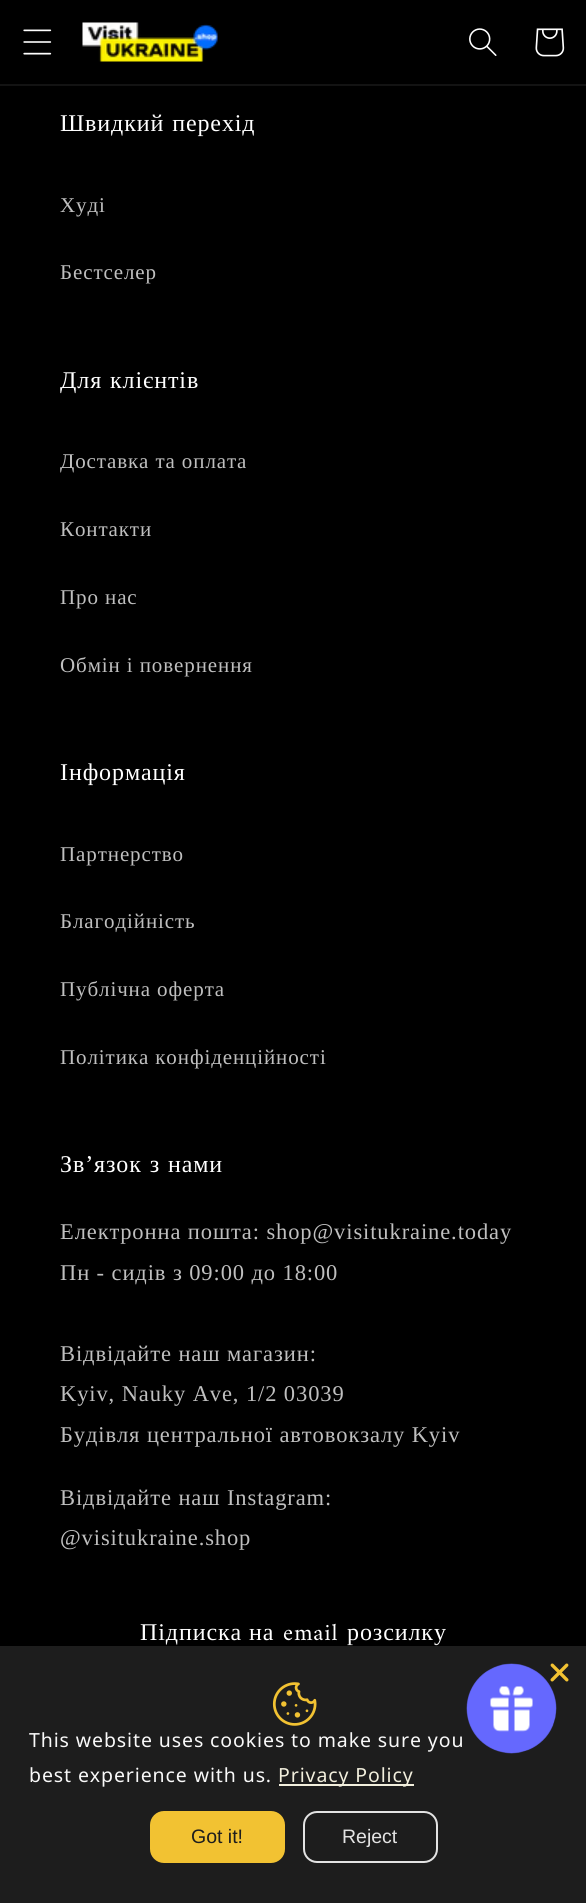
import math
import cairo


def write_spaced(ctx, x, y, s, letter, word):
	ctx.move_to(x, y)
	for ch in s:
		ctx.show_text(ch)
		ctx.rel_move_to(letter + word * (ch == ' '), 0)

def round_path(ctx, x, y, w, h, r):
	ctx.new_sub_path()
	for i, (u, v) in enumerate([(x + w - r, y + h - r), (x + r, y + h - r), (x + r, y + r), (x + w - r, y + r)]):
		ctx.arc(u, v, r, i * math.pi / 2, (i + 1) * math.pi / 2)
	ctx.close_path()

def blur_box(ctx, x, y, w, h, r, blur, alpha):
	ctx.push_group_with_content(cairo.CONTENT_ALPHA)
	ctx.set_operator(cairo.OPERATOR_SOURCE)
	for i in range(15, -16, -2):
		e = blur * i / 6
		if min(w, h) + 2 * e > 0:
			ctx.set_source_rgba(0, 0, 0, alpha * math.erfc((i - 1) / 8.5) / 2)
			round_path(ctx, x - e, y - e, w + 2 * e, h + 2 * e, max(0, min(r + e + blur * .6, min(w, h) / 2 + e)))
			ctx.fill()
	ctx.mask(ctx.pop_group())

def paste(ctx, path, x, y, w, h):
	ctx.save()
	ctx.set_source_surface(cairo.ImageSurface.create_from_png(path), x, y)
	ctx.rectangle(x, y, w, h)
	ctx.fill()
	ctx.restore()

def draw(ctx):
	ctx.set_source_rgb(0, 0, 0)
	ctx.paint()
	ctx.set_source_rgb(0.078, 0.078, 0.078)
	ctx.rectangle(0, 84, 586, 2)
	ctx.fill()
	paste(ctx, 'media/1.png', 23, 29, 29, 26)
	paste(ctx, 'media/2.png', 82, 22, 136, 40)
	paste(ctx, 'media/3.png', 469, 28, 28, 28)
	paste(ctx, 'media/4.png', 535, 28, 30, 29)
	ctx.select_font_face('Liberation Serif')
	ctx.set_font_size(24)
	ctx.set_source_rgb(1, 1, 1)
	write_spaced(ctx, 60, 131, 'Швидкий перехід', 0.9, 1)
	ctx.set_font_size(21)
	ctx.set_source_rgb(0.749, 0.749, 0.749)
	write_spaced(ctx, 60, 212, 'Худі', 0.9, 0)
	write_spaced(ctx, 60, 279, 'Бестселер', 0.9, 0)
	ctx.set_font_size(24)
	ctx.set_source_rgb(1, 1, 1)
	write_spaced(ctx, 60, 388, 'Для клієнтів', 0.9, 1)
	ctx.set_font_size(21)
	ctx.set_source_rgb(0.749, 0.749, 0.749)
	for x, y, s in [
		(60, 468, 'Доставка та оплата'),
		(60, 536, 'Контакти'),
		(60, 604, 'Про нас'),
		(60, 672, 'Обмін і повернення'),
	]:
		write_spaced(ctx, x, y, s, 0.9, 0)
	ctx.set_font_size(24)
	ctx.set_source_rgb(1, 1, 1)
	write_spaced(ctx, 60, 780, 'Інформація', 0.9, 0)
	ctx.set_font_size(21)
	ctx.set_source_rgb(0.749, 0.749, 0.749)
	for x, y, s in [
		(60, 861, 'Партнерство'),
		(60, 928, 'Благодійність'),
		(60, 996, 'Публічна оферта'),
		(60, 1064, 'Політика конфіденційності'),
	]:
		write_spaced(ctx, x, y, s, 0.9, 0)
	ctx.set_font_size(24)
	ctx.set_source_rgb(1, 1, 1)
	write_spaced(ctx, 60, 1172, 'Звʼязок з нами', 0.9, 1)
	ctx.set_font_size(22.5)
	ctx.set_source_rgb(0.749, 0.749, 0.749)
	for x, y, s in [
		(60, 1239, 'Електронна пошта: shop@visitukraine.today'),
		(60, 1280, 'Пн - сидів з 09:00 до 18:00'),
		(60, 1361, 'Відвідайте наш магазин:'),
		(60, 1401, 'Kyiv, Nauky Ave, 1/2 03039'),
		(60, 1442, 'Будівля центральної автовокзалу Kyiv'),
		(60, 1505, 'Відвідайте наш Instagram:'),
		(60, 1545, '@visitukraine.shop'),
	]:
		write_spaced(ctx, x, y, s, 0.9, 0)
	ctx.set_font_size(24)
	ctx.set_source_rgb(1, 1, 1)
	write_spaced(ctx, 140, 1640, 'Підписка на', 0.9, 0)
	ctx.select_font_face('Amiri')
	write_spaced(ctx, 283, 1640, 'email', 0.9, 0)
	ctx.select_font_face('Liberation Serif')
	write_spaced(ctx, 347, 1640, 'розсилку', 0.9, 0)
	ctx.set_source_rgb(0, 0, 0)
	blur_box(ctx, 0, 1646, 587, 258, 0, 1.5, 0.5)
	ctx.set_source_rgb(0.114, 0.114, 0.114)
	ctx.rectangle(0, 1646, 586, 257)
	ctx.fill()
	paste(ctx, 'media/6.png', 550, 1663, 19, 19)
	paste(ctx, 'media/5.png', 466, 1663, 91, 91)
	paste(ctx, 'media/7.png', 272, 1682, 45, 44)
	ctx.select_font_face('Noto Sans')
	ctx.set_font_size(19.5)
	ctx.set_source_rgb(0.973, 0.973, 0.973)
	write_spaced(ctx, 29, 1747, 'This website uses cookies to make sure you', 0.9, 0)
	write_spaced(ctx, 29, 1782, 'best experience with us.', 0.9, 0)
	ctx.set_source_rgb(0.949, 0.937, 0.867)
	ctx.rectangle(279, 1784, 135, 2)
	ctx.fill()
	write_spaced(ctx, 278, 1782, 'Privacy Policy', 0.9, 0)
	ctx.set_source_rgb(0.949, 0.761, 0.196)
	round_path(ctx, 150, 1811, 135, 52, 14)
	ctx.fill()
	ctx.select_font_face('Liberation Sans')
	ctx.set_source_rgb(0.114, 0.114, 0.114)
	ctx.move_to(191, 1843)
	ctx.show_text('Got it!')
	round_path(ctx, 304, 1812, 133, 50, 13)
	ctx.set_source_rgb(0.89, 0.89, 0.89)
	ctx.stroke()
	ctx.move_to(342, 1843)
	ctx.show_text('Reject')


surface = cairo.ImageSurface(cairo.FORMAT_RGB24, 586, 1903)
ctx = cairo.Context(surface)
options = cairo.FontOptions()
options.set_hint_metrics(cairo.HINT_METRICS_OFF)
options.set_hint_style(cairo.HINT_STYLE_NONE)
ctx.set_font_options(options)
ctx.set_miter_limit(4)
draw(ctx)
surface.write_to_png('image.png')
